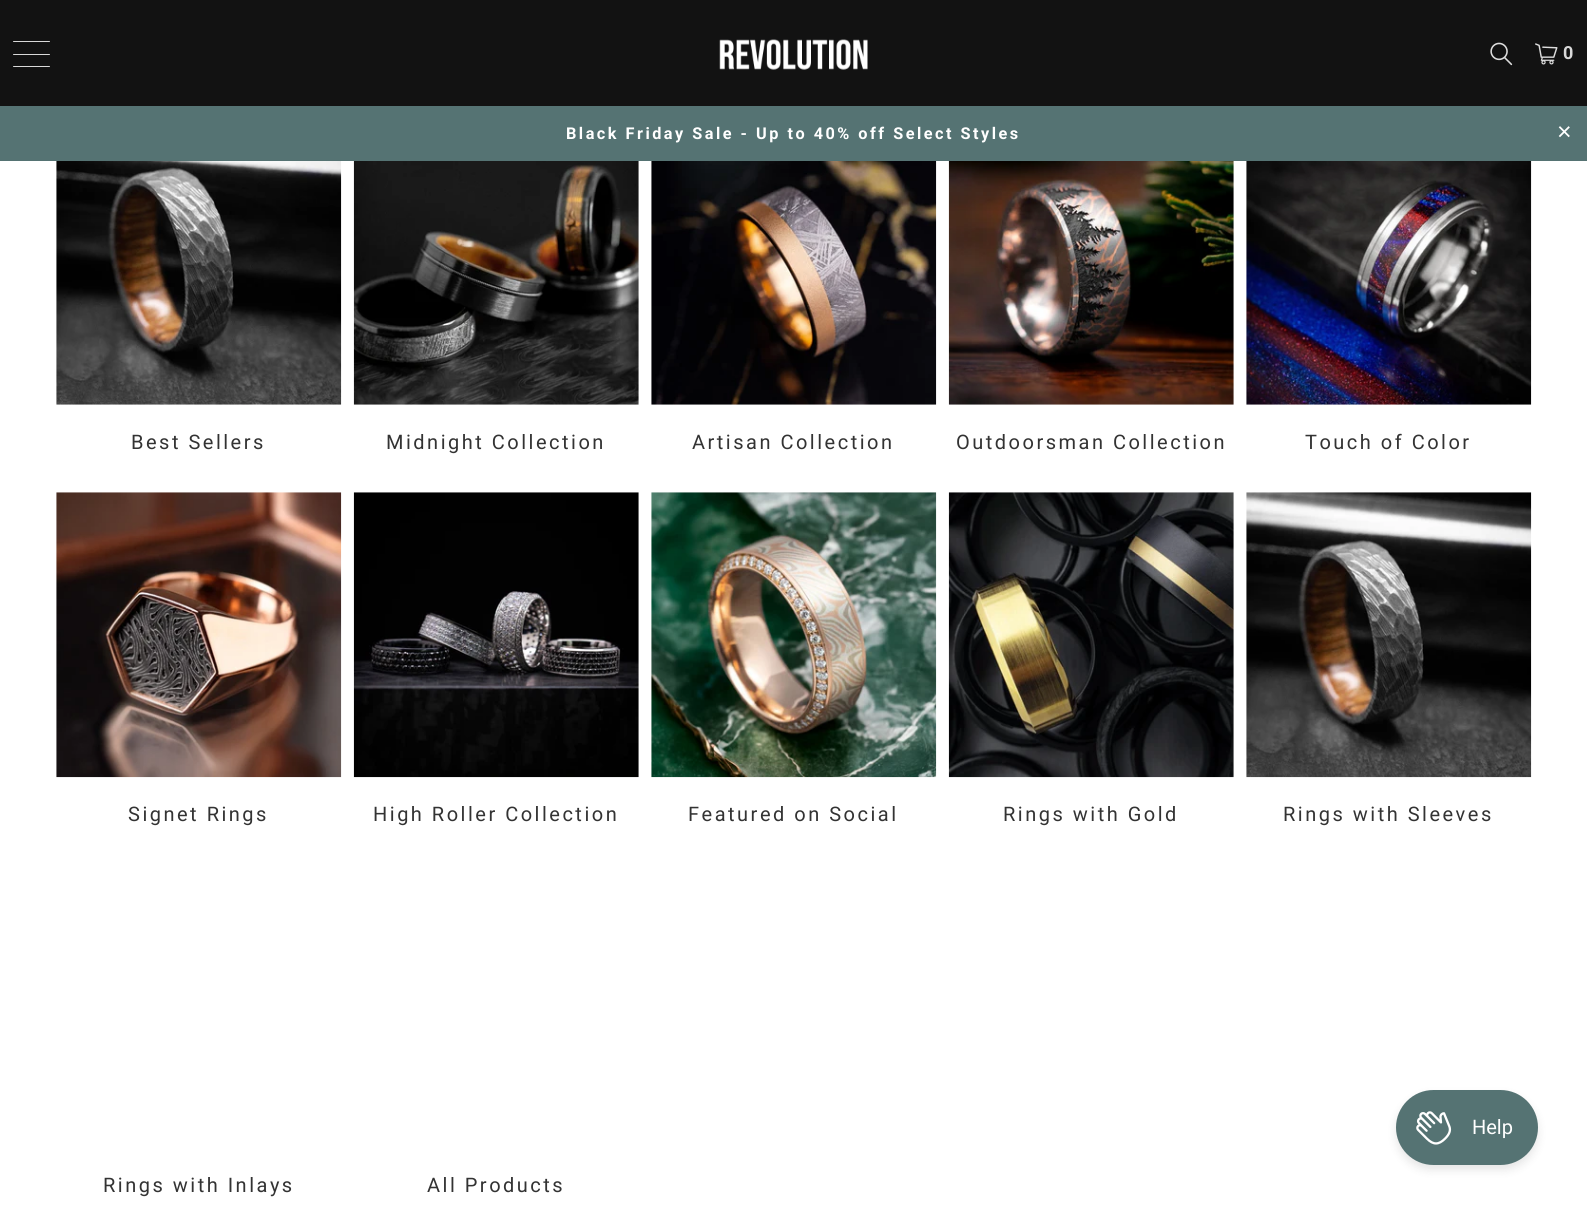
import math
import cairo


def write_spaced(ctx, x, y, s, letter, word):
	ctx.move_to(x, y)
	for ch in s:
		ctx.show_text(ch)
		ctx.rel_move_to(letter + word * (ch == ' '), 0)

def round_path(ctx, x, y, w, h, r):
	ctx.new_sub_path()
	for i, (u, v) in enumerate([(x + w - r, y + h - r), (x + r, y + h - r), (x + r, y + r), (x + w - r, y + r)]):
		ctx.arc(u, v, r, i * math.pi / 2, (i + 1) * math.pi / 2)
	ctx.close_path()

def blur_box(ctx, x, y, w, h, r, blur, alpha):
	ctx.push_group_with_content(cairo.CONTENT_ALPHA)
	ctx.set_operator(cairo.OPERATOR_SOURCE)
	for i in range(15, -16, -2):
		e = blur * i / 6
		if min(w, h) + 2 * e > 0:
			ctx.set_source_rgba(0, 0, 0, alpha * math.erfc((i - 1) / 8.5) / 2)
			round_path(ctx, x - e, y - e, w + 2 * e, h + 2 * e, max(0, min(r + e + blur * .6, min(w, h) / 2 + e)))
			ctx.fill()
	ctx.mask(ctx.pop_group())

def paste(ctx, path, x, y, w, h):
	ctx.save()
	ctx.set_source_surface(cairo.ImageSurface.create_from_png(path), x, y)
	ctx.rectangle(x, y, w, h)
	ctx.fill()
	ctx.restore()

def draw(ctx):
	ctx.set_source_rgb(1, 1, 1)
	ctx.paint()
	ctx.set_source_rgb(0.071, 0.071, 0.071)
	ctx.rectangle(0, 0, 1587, 106)
	ctx.fill()
	ctx.set_source_rgb(0.851, 0.851, 0.851)
	round_path(ctx, 13, 41, 37, 1, 0.5)
	ctx.fill()
	round_path(ctx, 13, 54, 37, 1, 0.5)
	ctx.fill()
	round_path(ctx, 13, 66, 37, 1, 0.5)
	ctx.fill()
	paste(ctx, 'media/1.png', 719, 39, 149, 31)
	paste(ctx, 'media/2.png', 1490, 42, 23, 24)
	paste(ctx, 'media/3.png', 1535, 43, 23, 22)
	ctx.select_font_face('Roboto', cairo.FONT_SLANT_NORMAL, cairo.FONT_WEIGHT_BOLD)
	ctx.set_font_size(18)
	write_spaced(ctx, 1563, 59, '0', 1, 0)
	ctx.set_source_rgb(0.333, 0.451, 0.451)
	ctx.rectangle(0, 106, 1587, 55)
	ctx.fill()
	ctx.set_font_size(16.25)
	ctx.set_source_rgb(1, 1, 1)
	write_spaced(ctx, 566, 139, 'Black Friday Sale - Up to 40% off Select Styles', 2.5, 0)
	ctx.select_font_face('Liberation Sans')
	ctx.set_font_size(25)
	write_spaced(ctx, 1557, 140, '×', 2.5, 0)
	paste(ctx, 'media/4.png', 56, 161, 286, 244)
	ctx.select_font_face('Roboto')
	ctx.set_font_size(20)
	ctx.set_source_rgb(0.2, 0.2, 0.2)
	write_spaced(ctx, 131, 449, 'Best Sellers', 2.5, 0)
	paste(ctx, 'media/5.png', 353, 161, 286, 244)
	write_spaced(ctx, 386, 449, 'Midnight Collection', 2.5, 0)
	paste(ctx, 'media/6.png', 651, 161, 286, 244)
	write_spaced(ctx, 692, 449, 'Artisan Collection', 2.5, 0)
	paste(ctx, 'media/7.png', 948, 161, 286, 244)
	write_spaced(ctx, 956, 449, 'Outdoorsman Collection', 2.5, 0)
	paste(ctx, 'media/8.png', 1246, 161, 286, 244)
	write_spaced(ctx, 1305, 449, 'Touch of Color', 2.5, 0)
	paste(ctx, 'media/9.png', 56, 492, 286, 286)
	write_spaced(ctx, 128, 821, 'Signet Rings', 2.5, 0)
	paste(ctx, 'media/10.png', 353, 492, 286, 286)
	write_spaced(ctx, 373, 821, 'High Roller Collection', 2.5, 0)
	paste(ctx, 'media/11.png', 651, 492, 286, 286)
	write_spaced(ctx, 688, 821, 'Featured on Social', 2.5, 0)
	paste(ctx, 'media/12.png', 948, 492, 286, 286)
	write_spaced(ctx, 1003, 821, 'Rings with Gold', 2.5, 0)
	paste(ctx, 'media/13.png', 1246, 492, 286, 286)
	for x, y, s in [
		(1283, 821, 'Rings with Sleeves'),
		(103, 1192, 'Rings with Inlays'),
		(427, 1192, 'All Products'),
	]:
		write_spaced(ctx, x, y, s, 2.5, 0)
	ctx.set_source_rgb(0, 0, 0)
	blur_box(ctx, 1396, 1095, 142, 75, 37.5, 4.5, 0.1)
	ctx.set_source_rgb(0.333, 0.451, 0.451)
	round_path(ctx, 1396, 1090, 142, 75, 37.5)
	ctx.fill()
	paste(ctx, 'media/14.png', 1416, 1111, 36, 34)
	ctx.set_source_rgb(1, 1, 1)
	ctx.move_to(1472, 1134)
	ctx.show_text('Help')


surface = cairo.ImageSurface(cairo.FORMAT_RGB24, 1587, 1214)
ctx = cairo.Context(surface)
options = cairo.FontOptions()
options.set_hint_metrics(cairo.HINT_METRICS_OFF)
options.set_hint_style(cairo.HINT_STYLE_NONE)
ctx.set_font_options(options)
ctx.set_miter_limit(4)
draw(ctx)
surface.write_to_png('image.png')
